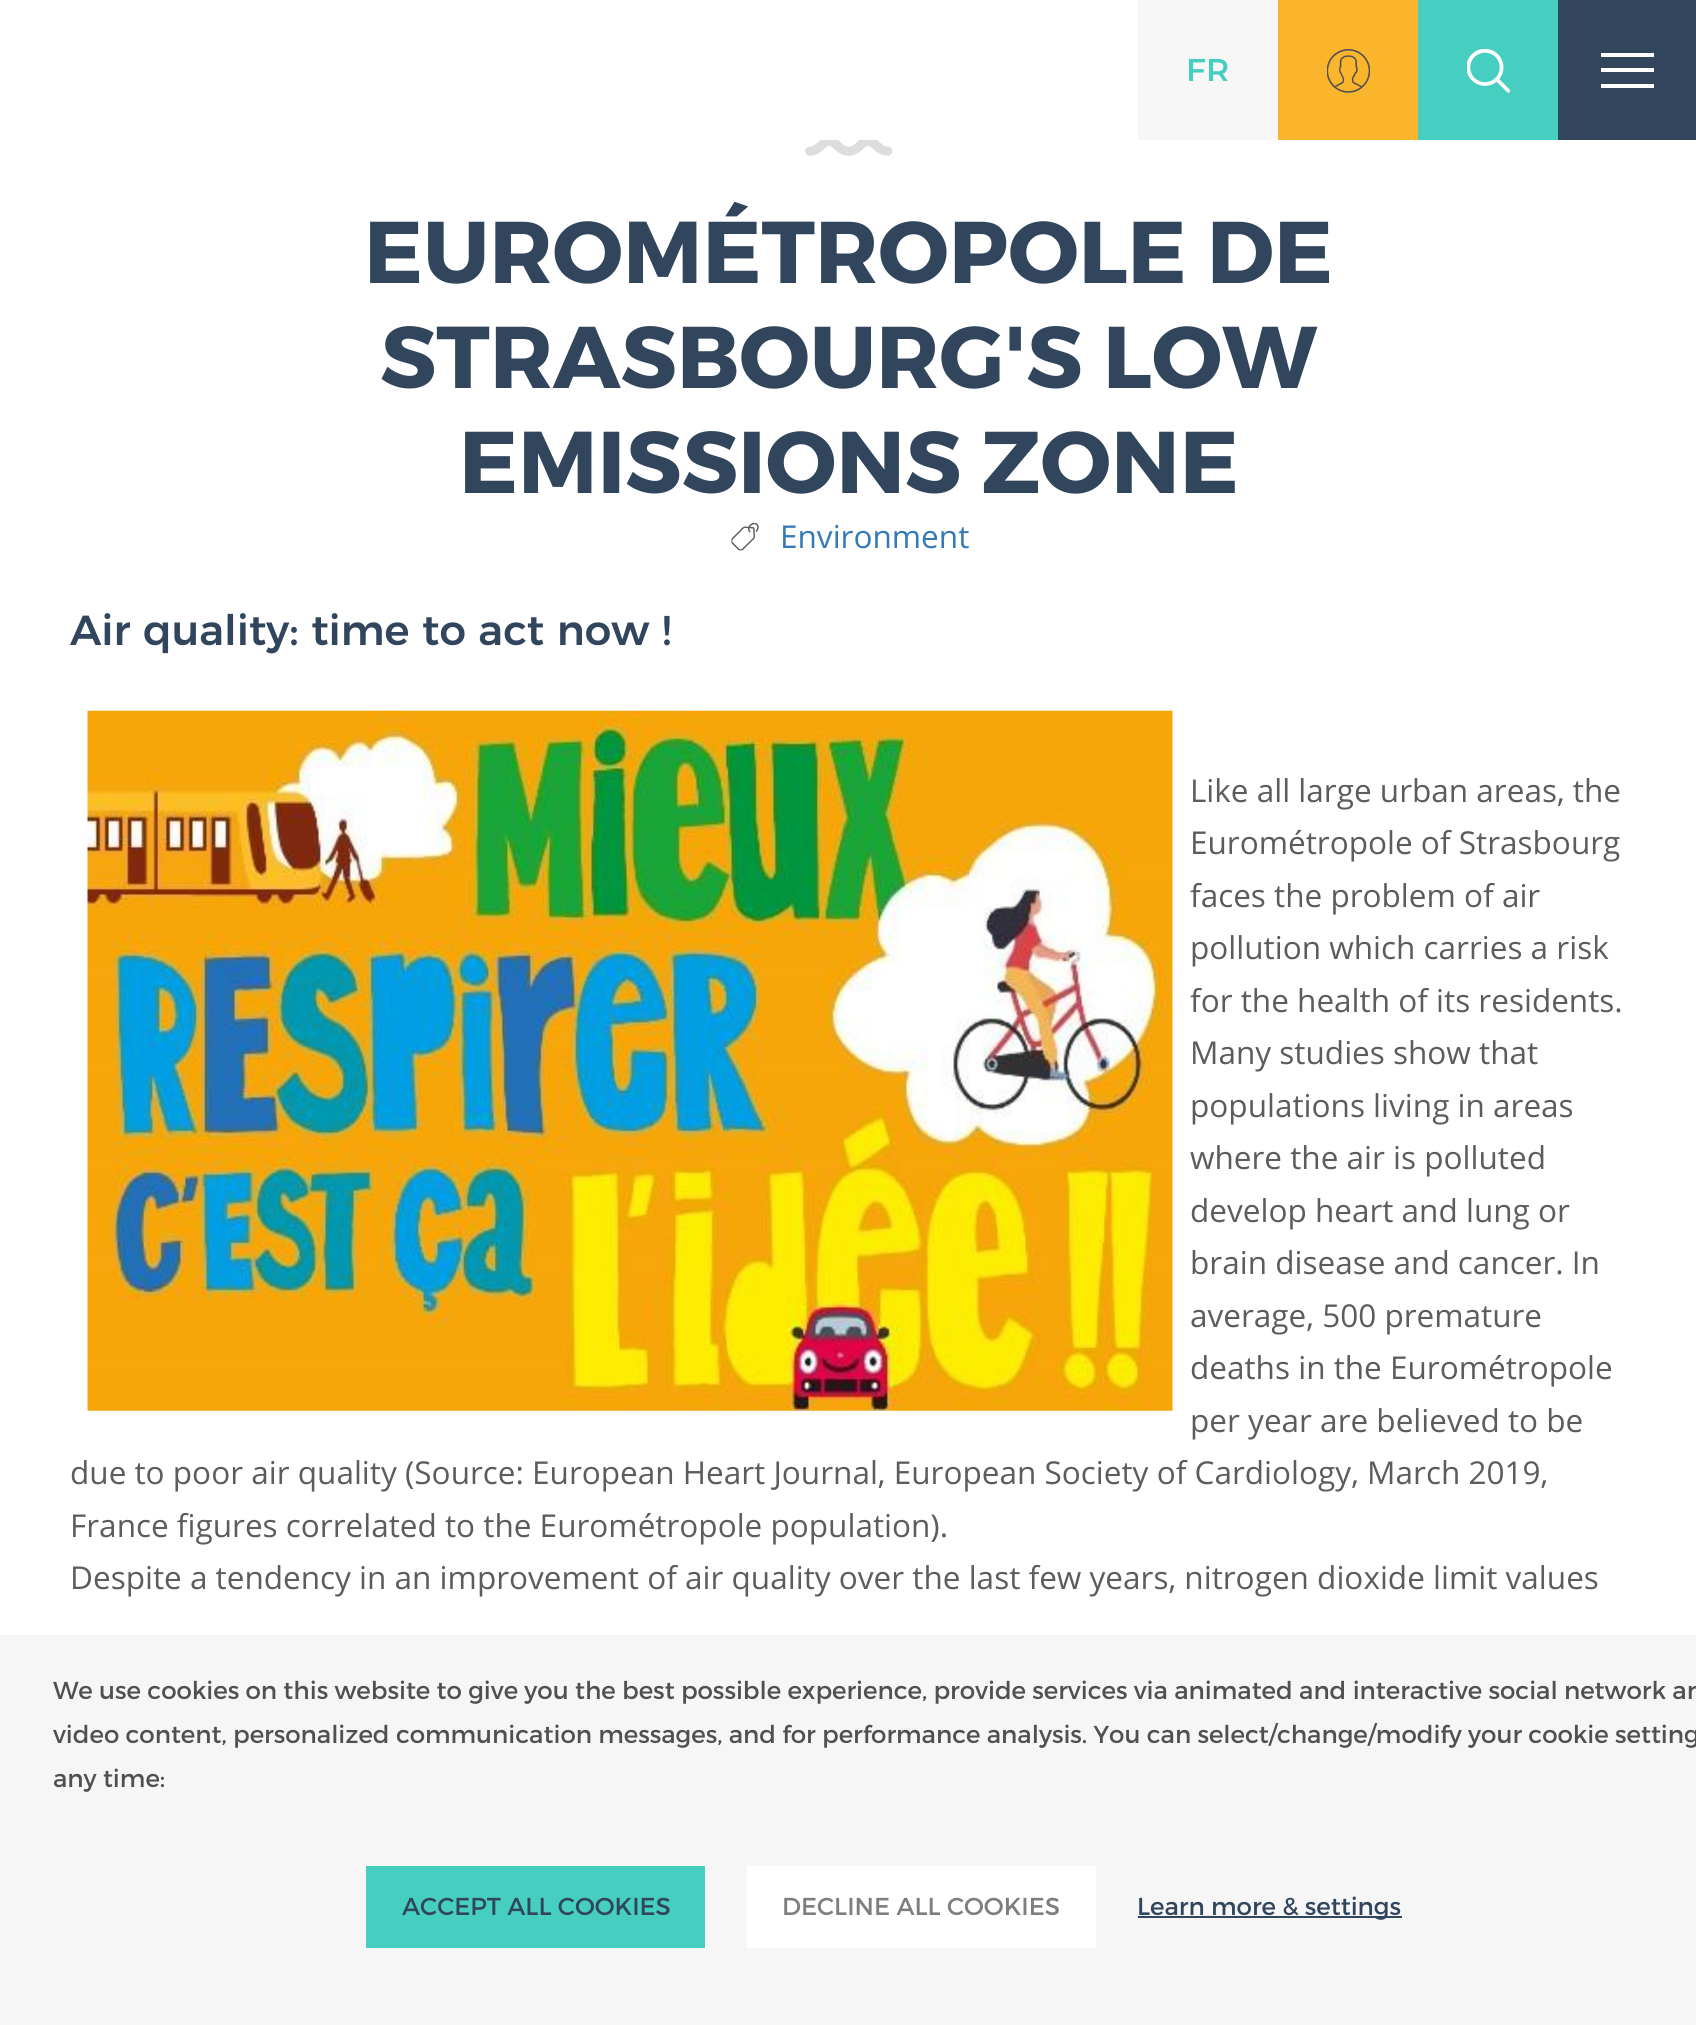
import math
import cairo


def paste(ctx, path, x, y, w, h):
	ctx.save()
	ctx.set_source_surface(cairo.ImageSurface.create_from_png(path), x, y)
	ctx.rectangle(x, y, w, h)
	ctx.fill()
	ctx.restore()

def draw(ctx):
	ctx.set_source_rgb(1, 1, 1)
	ctx.paint()
	ctx.set_source_rgb(0.965, 0.965, 0.965)
	ctx.rectangle(1138, 0, 140, 140)
	ctx.fill()
	ctx.select_font_face('Montserrat SemiBold')
	ctx.set_font_size(31.5)
	ctx.set_source_rgb(0.275, 0.812, 0.753)
	ctx.move_to(1186, 81)
	ctx.show_text('FR')
	ctx.set_source_rgb(0.984, 0.71, 0.176)
	ctx.rectangle(1278, 0, 140, 140)
	ctx.fill()
	paste(ctx, 'media/1.png', 1327, 49, 43, 44)
	ctx.set_source_rgb(0.275, 0.812, 0.753)
	ctx.rectangle(1418, 0, 140, 140)
	ctx.fill()
	paste(ctx, 'media/2.png', 1467, 49, 43, 44)
	ctx.set_source_rgb(0.192, 0.271, 0.365)
	ctx.rectangle(1558, 0, 138, 140)
	ctx.fill()
	ctx.set_source_rgb(1, 1, 1)
	ctx.rectangle(1601, 53, 53, 4)
	ctx.rectangle(1601, 68, 53, 4)
	ctx.rectangle(1601, 84, 53, 4)
	ctx.fill()
	paste(ctx, 'media/3.png', 805, 140, 88, 16)
	ctx.select_font_face('Montserrat', cairo.FONT_SLANT_NORMAL, cairo.FONT_WEIGHT_BOLD)
	ctx.set_font_size(87.5)
	ctx.set_source_rgb(0.192, 0.271, 0.365)
	for x, y, s in [
		(364, 283, 'EUROMÉTROPOLE DE'),
		(380, 388, 'STRASBOURG\'S LOW'),
		(459, 493, 'EMISSIONS ZONE'),
	]:
		ctx.move_to(x, y)
		ctx.show_text(s)
	paste(ctx, 'media/4.png', 731, 522, 28, 29)
	ctx.select_font_face('Open Sans')
	ctx.set_font_size(31.5)
	ctx.set_source_rgb(0.2, 0.478, 0.718)
	ctx.move_to(780, 548)
	ctx.show_text('Environment')
	ctx.select_font_face('Montserrat Medium')
	ctx.set_font_size(42)
	ctx.set_source_rgb(0.192, 0.271, 0.365)
	ctx.move_to(70, 645)
	ctx.show_text('Air quality: time to act now !')
	paste(ctx, 'media/5.png', 87, 710, 1086, 701)
	ctx.select_font_face('Open Sans')
	ctx.set_font_size(31.5)
	ctx.set_source_rgb(0.361, 0.361, 0.361)
	for x, y, s in [
		(1190, 802, 'Like all large urban areas, the'),
		(1190, 854, 'Eurométropole of Strasbourg'),
		(1190, 907, 'faces the problem of air'),
		(1190, 959, 'pollution which carries a risk'),
		(1190, 1012, 'for the health of its residents.'),
		(1190, 1064, 'Many studies show that'),
		(1190, 1117, 'populations living in areas'),
		(1190, 1169, 'where the air is polluted'),
		(1190, 1222, 'develop heart and lung or'),
		(1190, 1274, 'brain disease and cancer. In'),
		(1190, 1327, 'average, 500 premature'),
		(1190, 1379, 'deaths in the Eurométropole'),
		(1190, 1432, 'per year are believed to be'),
		(70, 1484, 'due to poor air quality (Source: European Heart Journal, European Society of Cardiology, March 2019,'),
		(70, 1537, 'France figures correlated to the Eurométropole population).'),
		(70, 1589, 'Despite a tendency in an improvement of air quality over the last few years, nitrogen dioxide limit values'),
	]:
		ctx.move_to(x, y)
		ctx.show_text(s)
	ctx.set_source_rgb(0.961, 0.961, 0.961)
	ctx.rectangle(0, 1635, 1696, 390)
	ctx.fill()
	ctx.select_font_face('Montserrat')
	ctx.set_font_size(24.5)
	ctx.set_source_rgb(0.314, 0.314, 0.314)
	for x, y, s in [
		(53, 1699, 'We use cookies on this website to give you the best possible experience, provide services via animated and interactive social network an'),
		(53, 1743, 'video content, personalized communication messages, and for performance analysis. You can select/change/modify your cookie setting'),
		(53, 1787, 'any time:'),
	]:
		ctx.move_to(x, y)
		ctx.show_text(s)
	ctx.set_source_rgb(0.275, 0.812, 0.753)
	ctx.rectangle(366, 1866, 339, 82)
	ctx.fill()
	ctx.set_source_rgb(0.192, 0.271, 0.365)
	ctx.move_to(402, 1915)
	ctx.show_text('ACCEPT ALL COOKIES')
	ctx.set_source_rgb(1, 1, 1)
	ctx.rectangle(747, 1866, 349, 82)
	ctx.fill()
	ctx.set_source_rgb(0.494, 0.494, 0.494)
	ctx.move_to(782, 1915)
	ctx.show_text('DECLINE ALL COOKIES')
	ctx.set_source_rgb(0.192, 0.271, 0.365)
	ctx.rectangle(1138, 1916, 264, 2)
	ctx.fill()
	ctx.move_to(1137, 1915)
	ctx.show_text('Learn more & settings')


surface = cairo.ImageSurface(cairo.FORMAT_RGB24, 1696, 2025)
ctx = cairo.Context(surface)
options = cairo.FontOptions()
options.set_hint_metrics(cairo.HINT_METRICS_OFF)
options.set_hint_style(cairo.HINT_STYLE_NONE)
ctx.set_font_options(options)
ctx.set_miter_limit(4)
draw(ctx)
surface.write_to_png('image.png')
